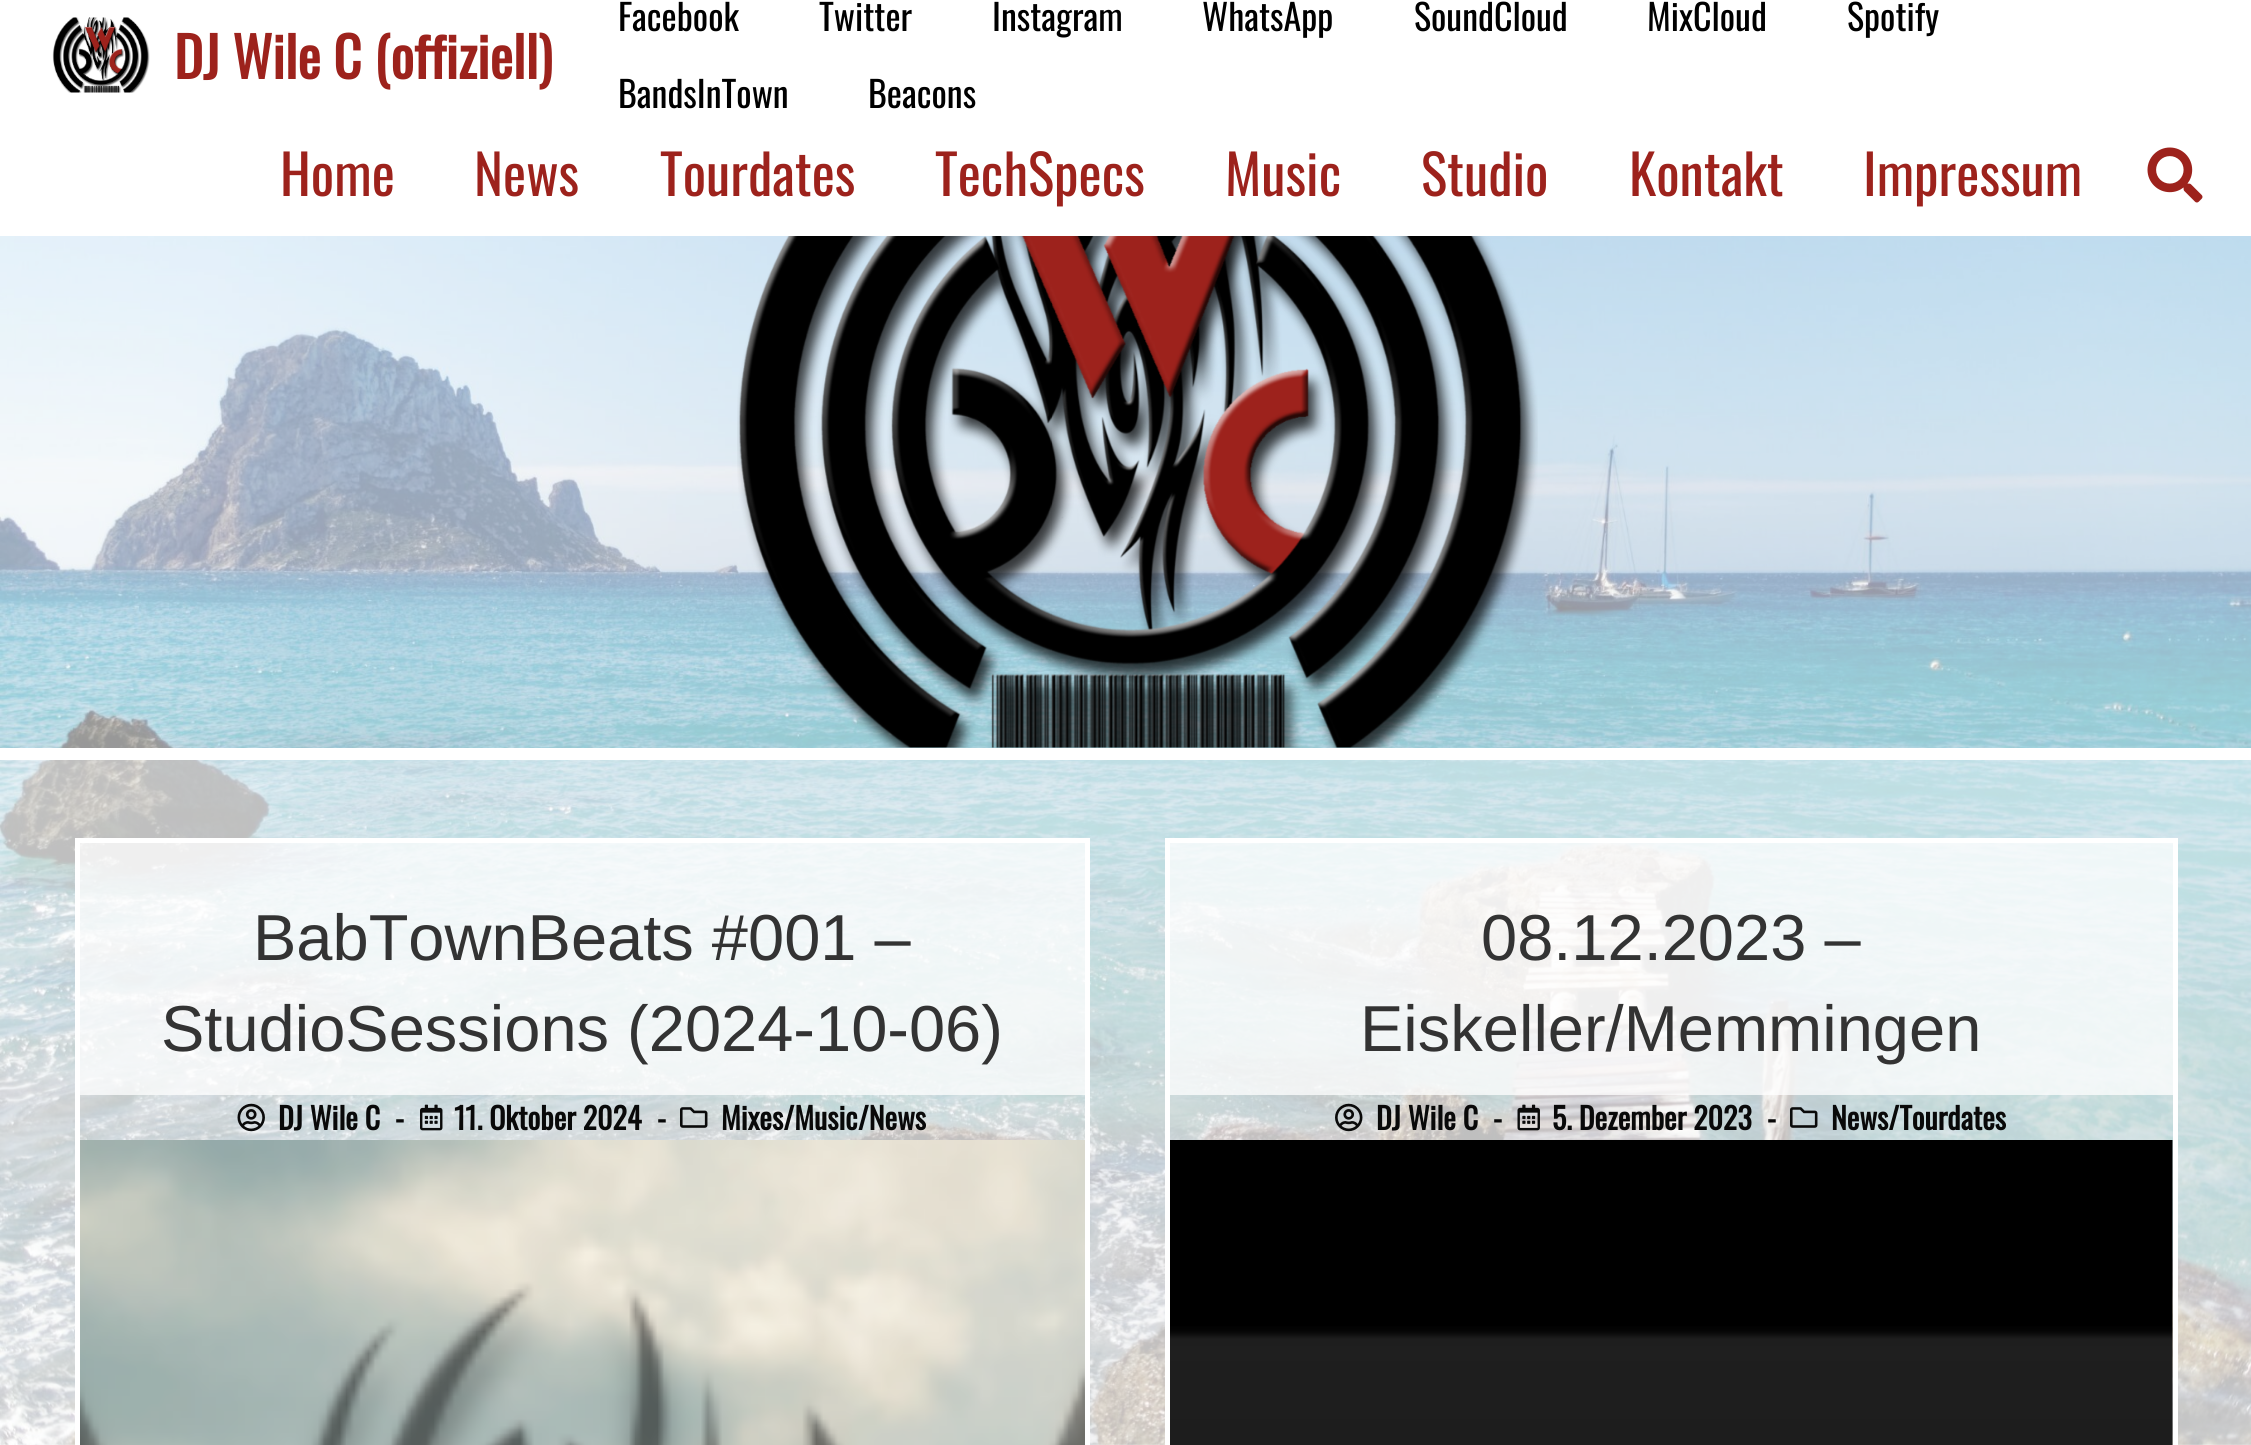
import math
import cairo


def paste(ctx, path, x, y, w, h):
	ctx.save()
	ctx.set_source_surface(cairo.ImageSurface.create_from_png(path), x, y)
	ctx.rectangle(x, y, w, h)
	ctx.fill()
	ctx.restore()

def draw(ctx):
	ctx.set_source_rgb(1, 1, 1)
	ctx.paint()
	paste(ctx, 'media/1.png', 0, 236, 2251, 1209)
	paste(ctx, 'media/2.png', 52, 17, 98, 76)
	ctx.select_font_face('Oswald', cairo.FONT_SLANT_NORMAL, cairo.FONT_WEIGHT_BOLD)
	ctx.set_font_size(55)
	ctx.set_source_rgb(0.616, 0.133, 0.11)
	ctx.move_to(174, 79)
	ctx.show_text('DJ Wile C (offiziell)')
	ctx.select_font_face('Oswald')
	ctx.set_font_size(36)
	ctx.set_source_rgb(0, 0, 0)
	for x, y, s in [
		(618, 31, 'Facebook'),
		(819, 31, 'Twitter'),
		(992, 31, 'Instagram'),
		(1202, 31, 'WhatsApp'),
		(1414, 31, 'SoundCloud'),
		(1647, 31, 'MixCloud'),
		(1847, 31, 'Spotify'),
		(618, 108, 'BandsInTown'),
		(868, 108, 'Beacons'),
	]:
		ctx.move_to(x, y)
		ctx.show_text(s)
	ctx.set_source_rgba(0.996, 0.996, 0.996, 0.6)
	ctx.rectangle(0, 236, 2251, 512)
	ctx.fill()
	paste(ctx, 'media/3.png', 737, 236, 801, 512)
	ctx.set_source_rgb(1, 1, 1)
	ctx.rectangle(0, 748, 2251, 12)
	ctx.fill()
	ctx.set_font_size(55)
	ctx.set_source_rgb(0.616, 0.133, 0.11)
	for x, y, s in [
		(280, 196, 'Home'),
		(474, 196, 'News'),
		(660, 196, 'Tourdates'),
		(935, 196, 'TechSpecs'),
		(1225, 196, 'Music'),
		(1421, 196, 'Studio'),
		(1629, 196, 'Kontakt'),
		(1863, 196, 'Impressum'),
	]:
		ctx.move_to(x, y)
		ctx.show_text(s)
	paste(ctx, 'media/4.png', 2147, 147, 56, 56)
	ctx.set_source_rgba(1, 1, 1, 0.75)
	ctx.rectangle(0, 760, 2251, 685)
	ctx.fill()
	ctx.rectangle(77.5, 840.5, 1010, 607)
	ctx.set_source_rgb(1, 1, 1)
	ctx.set_line_width(5)
	ctx.stroke()
	ctx.set_source_rgba(1, 1, 1, 0.75)
	ctx.rectangle(80, 843, 1005, 252)
	ctx.fill()
	ctx.select_font_face('Liberation Sans')
	ctx.set_font_size(65)
	ctx.set_source_rgb(0.2, 0.2, 0.2)
	ctx.move_to(253, 960)
	ctx.show_text('BabTownBeats #001 –')
	ctx.move_to(161, 1051)
	ctx.show_text('StudioSessions (2024-10-06)')
	paste(ctx, 'media/5.png', 237, 1103, 28, 29)
	ctx.select_font_face('Oswald', cairo.FONT_SLANT_NORMAL, cairo.FONT_WEIGHT_BOLD)
	ctx.set_font_size(30)
	ctx.set_source_rgb(0.039, 0.039, 0.039)
	ctx.move_to(278, 1130)
	ctx.show_text('DJ Wile C')
	ctx.move_to(395, 1130)
	ctx.show_text('-')
	paste(ctx, 'media/6.png', 420, 1104, 23, 27)
	ctx.move_to(454, 1130)
	ctx.show_text('11. Oktober 2024')
	ctx.move_to(657, 1130)
	ctx.show_text('-')
	paste(ctx, 'media/7.png', 680, 1107, 28, 21)
	ctx.move_to(721, 1130)
	ctx.show_text('Mixes/Music/News')
	paste(ctx, 'media/8.png', 80, 1140, 1005, 305)
	ctx.rectangle(1167.5, 840.5, 1008, 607)
	ctx.set_source_rgb(1, 1, 1)
	ctx.stroke()
	ctx.set_source_rgba(1, 1, 1, 0.75)
	ctx.rectangle(1170, 843, 1003, 252)
	ctx.fill()
	ctx.select_font_face('Liberation Sans')
	ctx.set_font_size(65)
	ctx.set_source_rgb(0.2, 0.2, 0.2)
	ctx.move_to(1481, 960)
	ctx.show_text('08.12.2023 –')
	ctx.move_to(1360, 1051)
	ctx.show_text('Eiskeller/Memmingen')
	paste(ctx, 'media/9.png', 1335, 1103, 28, 29)
	ctx.select_font_face('Oswald', cairo.FONT_SLANT_NORMAL, cairo.FONT_WEIGHT_BOLD)
	ctx.set_font_size(30)
	ctx.set_source_rgb(0.039, 0.039, 0.039)
	ctx.move_to(1376, 1130)
	ctx.show_text('DJ Wile C')
	ctx.move_to(1493, 1130)
	ctx.show_text('-')
	paste(ctx, 'media/10.png', 1517, 1104, 23, 27)
	ctx.move_to(1552, 1130)
	ctx.show_text('5. Dezember 2023')
	ctx.move_to(1767, 1130)
	ctx.show_text('-')
	paste(ctx, 'media/11.png', 1790, 1107, 28, 21)
	ctx.move_to(1831, 1130)
	ctx.show_text('News/Tourdates')
	paste(ctx, 'media/12.png', 1170, 1140, 1003, 305)


surface = cairo.ImageSurface(cairo.FORMAT_RGB24, 2251, 1445)
ctx = cairo.Context(surface)
options = cairo.FontOptions()
options.set_hint_metrics(cairo.HINT_METRICS_OFF)
options.set_hint_style(cairo.HINT_STYLE_NONE)
ctx.set_font_options(options)
ctx.set_miter_limit(4)
draw(ctx)
surface.write_to_png('image.png')
